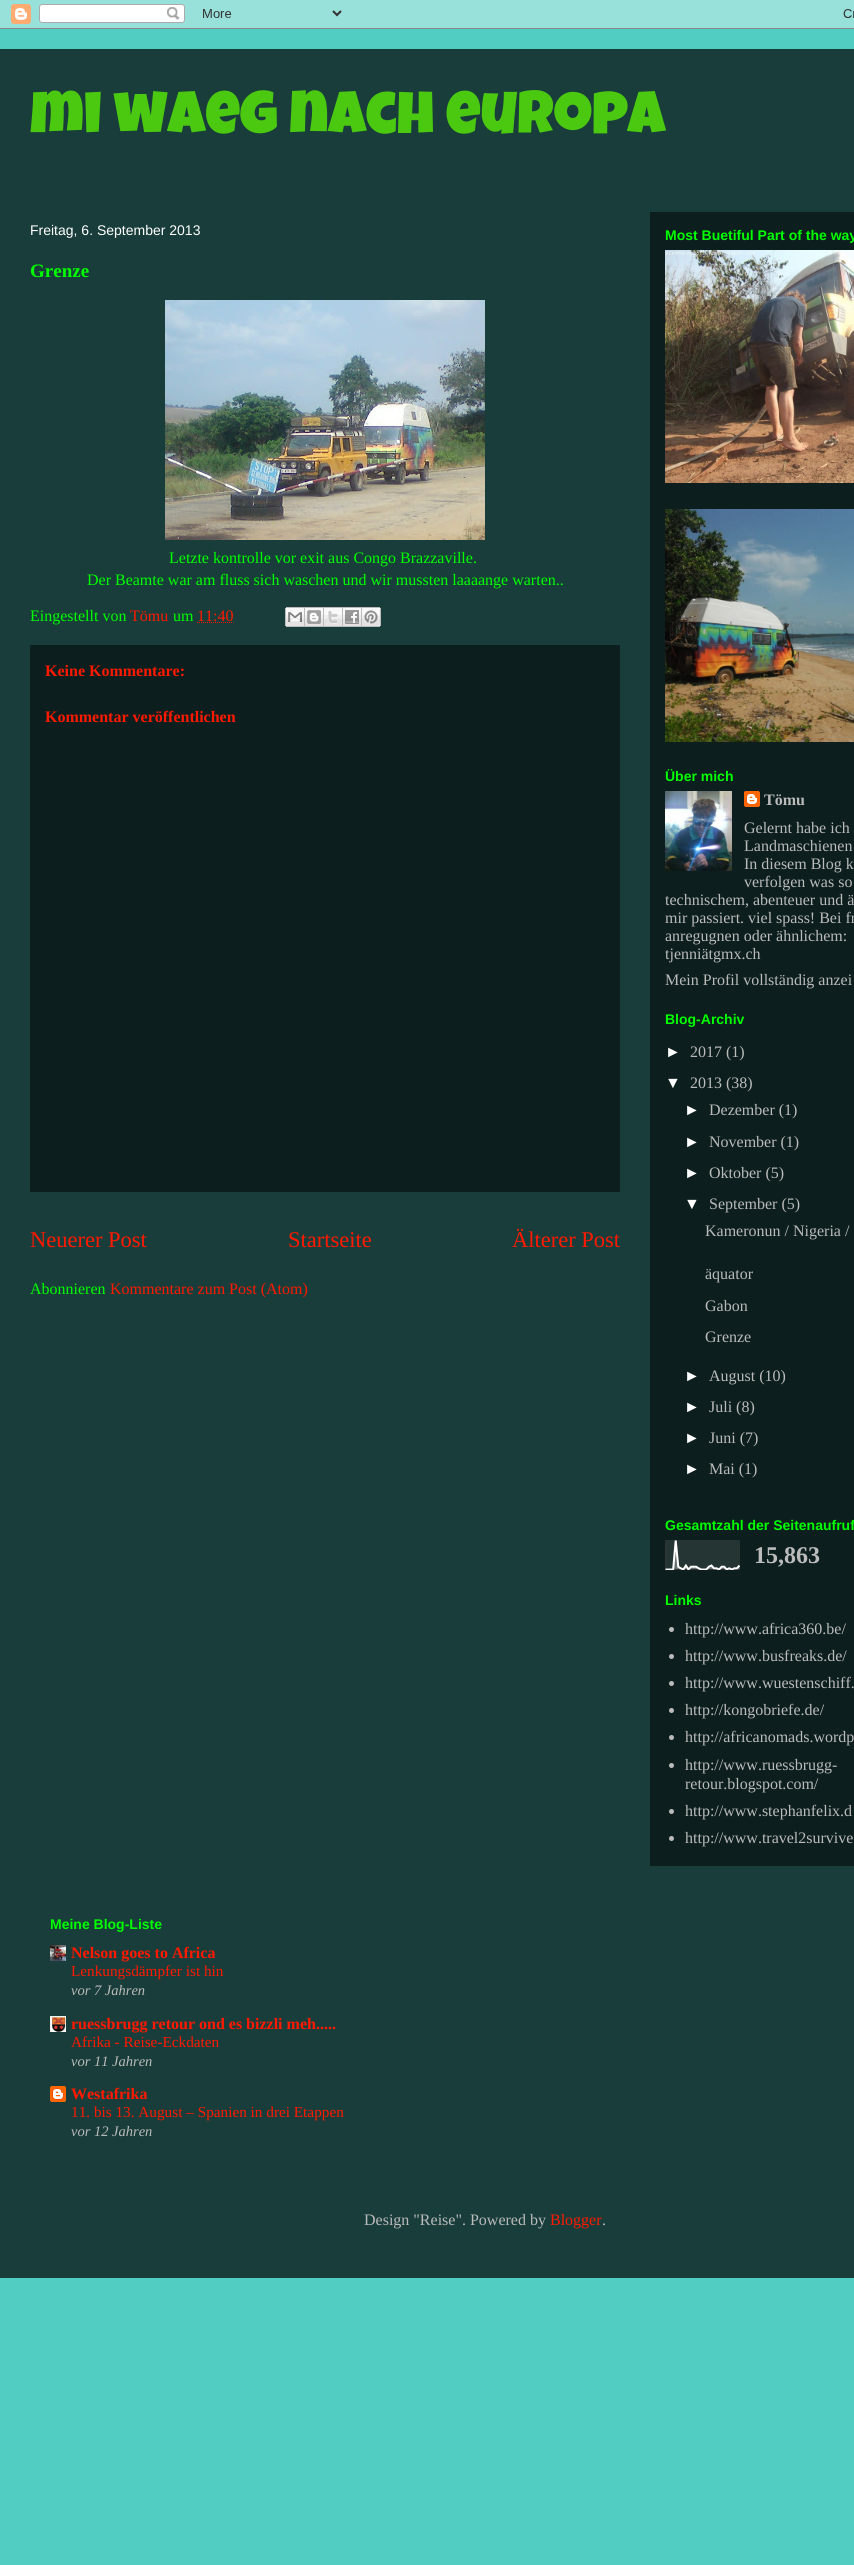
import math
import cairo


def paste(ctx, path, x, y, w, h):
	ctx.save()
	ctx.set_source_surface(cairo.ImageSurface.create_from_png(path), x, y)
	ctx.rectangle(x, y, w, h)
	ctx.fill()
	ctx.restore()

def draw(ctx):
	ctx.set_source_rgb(0.322, 0.804, 0.761)
	ctx.paint()
	paste(ctx, 'media/1.png', 0, 0, 854, 29)
	ctx.set_source_rgb(0.094, 0.239, 0.227)
	ctx.rectangle(0, 49, 854, 2229)
	ctx.fill()
	ctx.select_font_face('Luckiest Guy')
	ctx.set_font_size(60)
	ctx.set_source_rgb(0.29, 0.788, 0.063)
	ctx.move_to(30, 133)
	ctx.show_text('mi waeg nach europa')
	ctx.set_source_rgb(0.047, 0.118, 0.114)
	ctx.rectangle(650, 212, 204, 1654)
	ctx.fill()
	ctx.select_font_face('Liberation Sans')
	ctx.set_font_size(14)
	ctx.set_source_rgb(1, 1, 1)
	ctx.move_to(30, 235)
	ctx.show_text('Freitag, 6. September 2013')
	ctx.select_font_face('Liberation Serif', cairo.FONT_SLANT_NORMAL, cairo.FONT_WEIGHT_BOLD)
	ctx.set_font_size(19)
	ctx.set_source_rgb(0, 1, 0)
	ctx.move_to(30, 277)
	ctx.show_text('Grenze')
	paste(ctx, 'media/2.png', 165, 300, 320, 240)
	ctx.select_font_face('Liberation Serif')
	ctx.set_font_size(16)
	for x, y, s in [
		(169, 563, 'Letzte kontrolle vor exit aus Congo Brazzaville.'),
		(87, 585, 'Der Beamte war am fluss sich waschen und wir mussten laaaange warten..'),
		(30, 621, 'Eingestellt von'),
	]:
		ctx.move_to(x, y)
		ctx.show_text(s)
	ctx.set_source_rgb(1, 0.098, 0)
	ctx.move_to(130, 621)
	ctx.show_text('Tömu')
	ctx.set_source_rgb(0, 1, 0)
	ctx.move_to(173, 621)
	ctx.show_text('um')
	ctx.set_source_rgb(1, 0.098, 0)
	ctx.move_to(197, 621)
	ctx.show_text('11:40')
	ctx.new_path()
	ctx.move_to(197, 622.5)
	ctx.line_to(233.5, 622.5)
	ctx.set_line_width(1)
	ctx.set_dash([1, 1])
	ctx.stroke()
	paste(ctx, 'media/3.png', 285, 607, 20, 20)
	paste(ctx, 'media/4.png', 305, 607, 19, 20)
	paste(ctx, 'media/5.png', 324, 607, 19, 20)
	paste(ctx, 'media/6.png', 343, 607, 19, 20)
	paste(ctx, 'media/7.png', 362, 607, 19, 20)
	ctx.set_source_rgb(0.047, 0.118, 0.114)
	ctx.rectangle(30, 645, 590, 547)
	ctx.fill()
	ctx.select_font_face('Liberation Serif', cairo.FONT_SLANT_NORMAL, cairo.FONT_WEIGHT_BOLD)
	ctx.set_source_rgb(1, 0.098, 0)
	ctx.move_to(45, 676)
	ctx.show_text('Keine Kommentare:')
	ctx.move_to(45, 722)
	ctx.show_text('Kommentar veröffentlichen')
	ctx.select_font_face('Liberation Serif')
	ctx.set_font_size(22.5)
	for x, y, s in [
		(30, 1247, 'Neuerer Post'),
		(288, 1247, 'Startseite'),
		(512, 1247, 'Älterer Post'),
	]:
		ctx.move_to(x, y)
		ctx.show_text(s)
	ctx.set_font_size(16)
	ctx.set_source_rgb(0, 1, 0)
	ctx.move_to(30, 1294)
	ctx.show_text('Abonnieren')
	ctx.set_source_rgb(1, 0.098, 0)
	ctx.move_to(110, 1294)
	ctx.show_text('Kommentare zum Post (Atom)')
	ctx.select_font_face('Liberation Sans', cairo.FONT_SLANT_NORMAL, cairo.FONT_WEIGHT_BOLD)
	ctx.set_font_size(14)
	ctx.set_source_rgb(0, 1, 0)
	ctx.move_to(665, 240)
	ctx.show_text('Most Buetiful Part of the way')
	paste(ctx, 'media/8.png', 665, 250, 189, 233)
	paste(ctx, 'media/9.png', 665, 509, 189, 233)
	ctx.move_to(665, 781)
	ctx.show_text('Über mich')
	paste(ctx, 'media/10.png', 665, 791, 67, 80)
	paste(ctx, 'media/11.png', 744, 791, 16, 16)
	ctx.select_font_face('Liberation Serif', cairo.FONT_SLANT_NORMAL, cairo.FONT_WEIGHT_BOLD)
	ctx.set_font_size(16)
	ctx.set_source_rgb(0.733, 0.733, 0.733)
	ctx.move_to(764, 805)
	ctx.show_text('Tömu')
	ctx.select_font_face('Liberation Serif')
	for x, y, s in [
		(744, 833, 'Gelernt habe ich'),
		(744, 851, 'Landmaschienen'),
		(744, 869, 'In diesem Blog k'),
		(744, 887, 'verfolgen was so'),
		(665, 905, 'technischem, abenteuer und ä'),
		(665, 923, 'mir passiert. viel spass! Bei fr'),
		(665, 941, 'anregugnen oder ähnlichem:'),
		(665, 959, 'tjenniätgmx.ch'),
		(665, 985, 'Mein Profil vollständig anzei'),
	]:
		ctx.move_to(x, y)
		ctx.show_text(s)
	ctx.select_font_face('Liberation Sans', cairo.FONT_SLANT_NORMAL, cairo.FONT_WEIGHT_BOLD)
	ctx.set_font_size(14)
	ctx.set_source_rgb(0, 1, 0)
	ctx.move_to(665, 1024)
	ctx.show_text('Blog-Archiv')
	ctx.select_font_face('Liberation Sans')
	ctx.set_font_size(16)
	ctx.set_source_rgb(1, 1, 1)
	ctx.move_to(665, 1057)
	ctx.show_text('►')
	ctx.select_font_face('Liberation Serif')
	ctx.set_source_rgb(0.733, 0.733, 0.733)
	ctx.move_to(690, 1057)
	ctx.show_text('2017 (1)')
	ctx.select_font_face('Liberation Sans')
	ctx.set_source_rgb(1, 1, 1)
	ctx.move_to(665, 1088)
	ctx.show_text('▼')
	ctx.select_font_face('Liberation Serif')
	ctx.set_source_rgb(0.733, 0.733, 0.733)
	ctx.move_to(690, 1088)
	ctx.show_text('2013 (38)')
	ctx.select_font_face('Liberation Sans')
	ctx.set_source_rgb(1, 1, 1)
	ctx.move_to(684, 1115)
	ctx.show_text('►')
	ctx.select_font_face('Liberation Serif')
	ctx.set_source_rgb(0.733, 0.733, 0.733)
	ctx.move_to(709, 1115)
	ctx.show_text('Dezember (1)')
	ctx.select_font_face('Liberation Sans')
	ctx.set_source_rgb(1, 1, 1)
	ctx.move_to(684, 1147)
	ctx.show_text('►')
	ctx.select_font_face('Liberation Serif')
	ctx.set_source_rgb(0.733, 0.733, 0.733)
	ctx.move_to(709, 1147)
	ctx.show_text('November (1)')
	ctx.select_font_face('Liberation Sans')
	ctx.set_source_rgb(1, 1, 1)
	ctx.move_to(684, 1178)
	ctx.show_text('►')
	ctx.select_font_face('Liberation Serif')
	ctx.set_source_rgb(0.733, 0.733, 0.733)
	ctx.move_to(709, 1178)
	ctx.show_text('Oktober (5)')
	ctx.select_font_face('Liberation Sans')
	ctx.set_source_rgb(1, 1, 1)
	ctx.move_to(684, 1209)
	ctx.show_text('▼')
	ctx.select_font_face('Liberation Serif')
	ctx.set_source_rgb(0.733, 0.733, 0.733)
	for x, y, s in [
		(709, 1209, 'September (5)'),
		(705, 1236, 'Kameronun / Nigeria /'),
		(705, 1279, 'äquator'),
		(705, 1311, 'Gabon'),
		(705, 1342, 'Grenze'),
	]:
		ctx.move_to(x, y)
		ctx.show_text(s)
	ctx.select_font_face('Liberation Sans')
	ctx.set_source_rgb(1, 1, 1)
	ctx.move_to(684, 1381)
	ctx.show_text('►')
	ctx.select_font_face('Liberation Serif')
	ctx.set_source_rgb(0.733, 0.733, 0.733)
	ctx.move_to(709, 1381)
	ctx.show_text('August (10)')
	ctx.select_font_face('Liberation Sans')
	ctx.set_source_rgb(1, 1, 1)
	ctx.move_to(684, 1412)
	ctx.show_text('►')
	ctx.select_font_face('Liberation Serif')
	ctx.set_source_rgb(0.733, 0.733, 0.733)
	ctx.move_to(709, 1412)
	ctx.show_text('Juli (8)')
	ctx.select_font_face('Liberation Sans')
	ctx.set_source_rgb(1, 1, 1)
	ctx.move_to(684, 1443)
	ctx.show_text('►')
	ctx.select_font_face('Liberation Serif')
	ctx.set_source_rgb(0.733, 0.733, 0.733)
	ctx.move_to(709, 1443)
	ctx.show_text('Juni (7)')
	ctx.select_font_face('Liberation Sans')
	ctx.set_source_rgb(1, 1, 1)
	ctx.move_to(684, 1474)
	ctx.show_text('►')
	ctx.select_font_face('Liberation Serif')
	ctx.set_source_rgb(0.733, 0.733, 0.733)
	ctx.move_to(709, 1474)
	ctx.show_text('Mai (1)')
	ctx.select_font_face('Liberation Sans', cairo.FONT_SLANT_NORMAL, cairo.FONT_WEIGHT_BOLD)
	ctx.set_font_size(14)
	ctx.set_source_rgb(0, 1, 0)
	ctx.move_to(665, 1530)
	ctx.show_text('Gesamtzahl der Seitenaufruf')
	paste(ctx, 'media/12.png', 665, 1540, 75, 30)
	ctx.select_font_face('Liberation Serif', cairo.FONT_SLANT_NORMAL, cairo.FONT_WEIGHT_BOLD)
	ctx.set_font_size(24)
	ctx.set_source_rgb(0.733, 0.733, 0.733)
	ctx.move_to(754, 1563)
	ctx.show_text('15,863')
	ctx.select_font_face('Liberation Sans', cairo.FONT_SLANT_NORMAL, cairo.FONT_WEIGHT_BOLD)
	ctx.set_font_size(14)
	ctx.set_source_rgb(0, 1, 0)
	ctx.move_to(665, 1605)
	ctx.show_text('Links')
	ctx.set_source_rgb(0.733, 0.733, 0.733)
	ctx.new_path()
	ctx.arc(671.5, 1629.5, 2.5, 0, 2 * math.pi)
	ctx.fill()
	ctx.select_font_face('Liberation Serif')
	ctx.set_font_size(16)
	ctx.move_to(685, 1634)
	ctx.show_text('http://www.africa360.be/')
	ctx.new_path()
	ctx.arc(671.5, 1656.5, 2.5, 0, 2 * math.pi)
	ctx.fill()
	ctx.move_to(685, 1661)
	ctx.show_text('http://www.busfreaks.de/')
	ctx.new_path()
	ctx.arc(671.5, 1683.5, 2.5, 0, 2 * math.pi)
	ctx.fill()
	ctx.move_to(685, 1688)
	ctx.show_text('http://www.wuestenschiff.')
	ctx.new_path()
	ctx.arc(671.5, 1710.5, 2.5, 0, 2 * math.pi)
	ctx.fill()
	ctx.move_to(685, 1715)
	ctx.show_text('http://kongobriefe.de/')
	ctx.new_path()
	ctx.arc(671.5, 1737.5, 2.5, 0, 2 * math.pi)
	ctx.fill()
	ctx.move_to(685, 1742)
	ctx.show_text('http://africanomads.wordp')
	ctx.new_path()
	ctx.arc(671.5, 1765.5, 2.5, 0, 2 * math.pi)
	ctx.fill()
	ctx.move_to(685, 1770)
	ctx.show_text('http://www.ruessbrugg-')
	ctx.move_to(685, 1789)
	ctx.show_text('retour.blogspot.com/')
	ctx.new_path()
	ctx.arc(671.5, 1811.5, 2.5, 0, 2 * math.pi)
	ctx.fill()
	ctx.move_to(685, 1816)
	ctx.show_text('http://www.stephanfelix.d')
	ctx.new_path()
	ctx.arc(671.5, 1838.5, 2.5, 0, 2 * math.pi)
	ctx.fill()
	ctx.move_to(685, 1843)
	ctx.show_text('http://www.travel2survive')
	ctx.select_font_face('Liberation Sans', cairo.FONT_SLANT_NORMAL, cairo.FONT_WEIGHT_BOLD)
	ctx.set_font_size(14)
	ctx.set_source_rgb(0, 1, 0)
	ctx.move_to(50, 1929)
	ctx.show_text('Meine Blog-Liste')
	paste(ctx, 'media/13.png', 50, 1945, 16, 16)
	ctx.select_font_face('Liberation Serif', cairo.FONT_SLANT_NORMAL, cairo.FONT_WEIGHT_BOLD)
	ctx.set_font_size(16)
	ctx.set_source_rgb(1, 0.098, 0)
	ctx.move_to(71, 1958)
	ctx.show_text('Nelson goes to Africa')
	ctx.select_font_face('Liberation Serif')
	ctx.set_font_size(15.25)
	ctx.move_to(71, 1976)
	ctx.show_text('Lenkungsdämpfer ist hin')
	ctx.select_font_face('Liberation Serif', cairo.FONT_SLANT_ITALIC)
	ctx.set_font_size(14.5)
	ctx.set_source_rgb(0.733, 0.733, 0.733)
	ctx.move_to(71, 1995)
	ctx.show_text('vor 7 Jahren')
	paste(ctx, 'media/14.png', 50, 2016, 16, 16)
	ctx.select_font_face('Liberation Serif', cairo.FONT_SLANT_NORMAL, cairo.FONT_WEIGHT_BOLD)
	ctx.set_font_size(16)
	ctx.set_source_rgb(1, 0.098, 0)
	ctx.move_to(71, 2029)
	ctx.show_text('ruessbrugg retour ond es bizzli meh.....')
	ctx.select_font_face('Liberation Serif')
	ctx.set_font_size(15.25)
	ctx.move_to(71, 2047)
	ctx.show_text('Afrika - Reise-Eckdaten')
	ctx.select_font_face('Liberation Serif', cairo.FONT_SLANT_ITALIC)
	ctx.set_font_size(14.5)
	ctx.set_source_rgb(0.733, 0.733, 0.733)
	ctx.move_to(71, 2066)
	ctx.show_text('vor 11 Jahren')
	paste(ctx, 'media/15.png', 50, 2086, 16, 16)
	ctx.select_font_face('Liberation Serif', cairo.FONT_SLANT_NORMAL, cairo.FONT_WEIGHT_BOLD)
	ctx.set_font_size(16)
	ctx.set_source_rgb(1, 0.098, 0)
	ctx.move_to(71, 2099)
	ctx.show_text('Westafrika')
	ctx.select_font_face('Liberation Serif')
	ctx.set_font_size(15.25)
	ctx.move_to(71, 2117)
	ctx.show_text('11. bis 13. August – Spanien in drei Etappen')
	ctx.select_font_face('Liberation Serif', cairo.FONT_SLANT_ITALIC)
	ctx.set_font_size(14.5)
	ctx.set_source_rgb(0.733, 0.733, 0.733)
	ctx.move_to(71, 2136)
	ctx.show_text('vor 12 Jahren')
	ctx.select_font_face('Liberation Serif')
	ctx.set_font_size(16)
	ctx.move_to(364, 2225)
	ctx.show_text('Design "Reise". Powered by')
	ctx.set_source_rgb(1, 0.098, 0)
	ctx.move_to(550, 2225)
	ctx.show_text('Blogger')
	ctx.set_source_rgb(0.733, 0.733, 0.733)
	ctx.move_to(602, 2225)
	ctx.show_text('.')


surface = cairo.ImageSurface(cairo.FORMAT_RGB24, 854, 2565)
ctx = cairo.Context(surface)
options = cairo.FontOptions()
options.set_hint_metrics(cairo.HINT_METRICS_OFF)
options.set_hint_style(cairo.HINT_STYLE_NONE)
ctx.set_font_options(options)
ctx.set_miter_limit(4)
draw(ctx)
surface.write_to_png('image.png')
